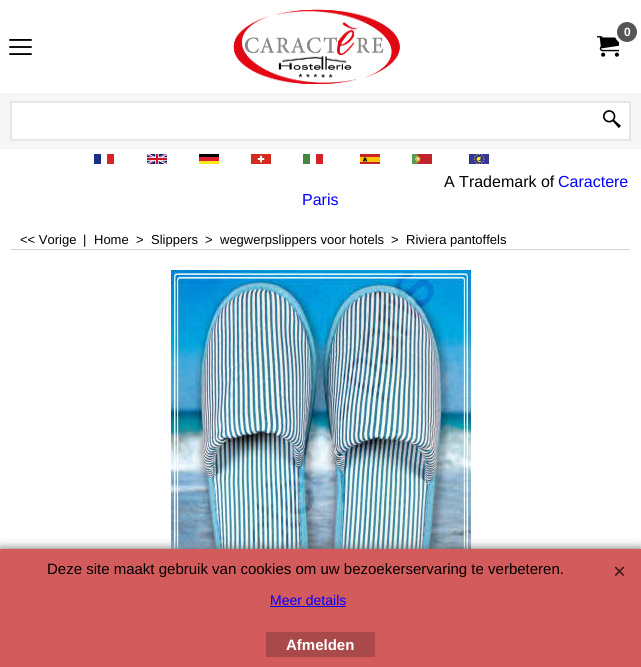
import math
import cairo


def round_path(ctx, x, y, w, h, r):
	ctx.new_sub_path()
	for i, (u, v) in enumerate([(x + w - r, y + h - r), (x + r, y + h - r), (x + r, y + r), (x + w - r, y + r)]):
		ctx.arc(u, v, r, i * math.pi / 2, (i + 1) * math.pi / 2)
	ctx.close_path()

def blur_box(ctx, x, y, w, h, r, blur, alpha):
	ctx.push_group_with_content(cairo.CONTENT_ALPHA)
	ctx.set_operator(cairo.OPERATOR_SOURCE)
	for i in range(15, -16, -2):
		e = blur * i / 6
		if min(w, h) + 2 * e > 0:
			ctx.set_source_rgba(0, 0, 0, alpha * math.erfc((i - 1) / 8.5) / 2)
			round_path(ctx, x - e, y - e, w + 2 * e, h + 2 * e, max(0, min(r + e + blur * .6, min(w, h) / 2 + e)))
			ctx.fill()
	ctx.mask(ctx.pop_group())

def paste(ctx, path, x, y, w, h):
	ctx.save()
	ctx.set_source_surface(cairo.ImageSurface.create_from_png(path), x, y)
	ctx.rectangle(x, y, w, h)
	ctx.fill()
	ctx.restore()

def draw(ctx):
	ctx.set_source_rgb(1, 1, 1)
	ctx.paint()
	paste(ctx, 'media/1.png', 233, 9, 167, 75)
	paste(ctx, 'media/2.png', 597, 36, 22, 21)
	ctx.set_source_rgb(0.333, 0.333, 0.333)
	ctx.arc(627, 32, 11.5, 0, 2 * math.pi)
	ctx.fill_preserve()
	ctx.set_source_rgb(1, 1, 1)
	ctx.set_line_width(3)
	ctx.stroke()
	ctx.select_font_face('Liberation Sans', cairo.FONT_SLANT_NORMAL, cairo.FONT_WEIGHT_BOLD)
	ctx.set_font_size(12)
	ctx.move_to(624, 36)
	ctx.show_text('0')
	paste(ctx, 'media/3.png', 9, 39, 23, 16)
	ctx.set_source_rgb(0.961, 0.961, 0.965)
	ctx.rectangle(0, 93, 641, 56)
	ctx.fill()
	ctx.set_source_rgb(1, 1, 1)
	ctx.rectangle(11, 102, 619, 38)
	ctx.fill_preserve()
	ctx.set_source_rgb(0.902, 0.902, 0.902)
	ctx.set_line_width(2)
	ctx.stroke()
	paste(ctx, 'media/4.png', 603, 110, 18, 18)
	paste(ctx, 'media/5.png', 94, 154, 20, 10)
	paste(ctx, 'media/6.png', 147, 154, 20, 10)
	paste(ctx, 'media/7.png', 199, 154, 20, 10)
	paste(ctx, 'media/8.png', 251, 154, 20, 10)
	paste(ctx, 'media/9.png', 303, 154, 20, 10)
	paste(ctx, 'media/10.png', 360, 154, 20, 10)
	paste(ctx, 'media/11.png', 412, 154, 20, 10)
	paste(ctx, 'media/12.png', 469, 154, 20, 10)
	ctx.select_font_face('Liberation Sans')
	ctx.set_font_size(16)
	ctx.set_source_rgb(0, 0, 0)
	ctx.move_to(444, 187)
	ctx.show_text('A Trademark of')
	ctx.set_source_rgb(0, 0, 1)
	ctx.move_to(558, 187)
	ctx.show_text('Caractere')
	ctx.move_to(302, 205)
	ctx.show_text('Paris')
	ctx.set_source_rgb(0.831, 0.831, 0.831)
	ctx.rectangle(11, 249, 619, 1)
	ctx.fill()
	ctx.set_font_size(13)
	ctx.set_source_rgb(0, 0, 0)
	for x, y, s in [
		(20, 244, '<< Vorige'),
		(83, 244, '|'),
		(94, 244, 'Home'),
		(136, 244, '>'),
		(151, 244, 'Slippers'),
		(205, 244, '>'),
		(220, 244, 'wegwerpslippers voor hotels'),
		(391, 244, '>'),
		(406, 244, 'Riviera pantoffels'),
	]:
		ctx.move_to(x, y)
		ctx.show_text(s)
	paste(ctx, 'media/13.png', 171, 270, 300, 279)
	ctx.set_source_rgb(0.4, 0.4, 0.4)
	blur_box(ctx, 0, 549, 641, 118, 0, 5, 1)
	ctx.set_source_rgb(0.831, 0.357, 0.357)
	ctx.rectangle(0, 549, 641, 118)
	ctx.fill()
	ctx.set_font_size(15)
	ctx.set_source_rgb(0, 0, 0)
	ctx.move_to(47, 574)
	ctx.show_text('Deze site maakt gebruik van cookies om uw bezoekerservaring te verbeteren.')
	ctx.set_font_size(14)
	ctx.set_source_rgb(0, 0, 1)
	ctx.move_to(270, 605)
	ctx.show_text('Meer details')
	ctx.rectangle(270, 606, 76, 1)
	ctx.fill()
	paste(ctx, 'media/14.png', 614, 566, 11, 10)
	ctx.set_source_rgb(0.667, 0.286, 0.286)
	ctx.rectangle(266, 632, 109, 25)
	ctx.fill()
	ctx.select_font_face('Liberation Sans', cairo.FONT_SLANT_NORMAL, cairo.FONT_WEIGHT_BOLD)
	ctx.set_font_size(15)
	ctx.set_source_rgb(1, 1, 1)
	ctx.move_to(286, 650)
	ctx.show_text('Afmelden')


surface = cairo.ImageSurface(cairo.FORMAT_RGB24, 641, 667)
ctx = cairo.Context(surface)
options = cairo.FontOptions()
options.set_hint_metrics(cairo.HINT_METRICS_OFF)
options.set_hint_style(cairo.HINT_STYLE_NONE)
ctx.set_font_options(options)
ctx.set_miter_limit(4)
draw(ctx)
surface.write_to_png('image.png')
